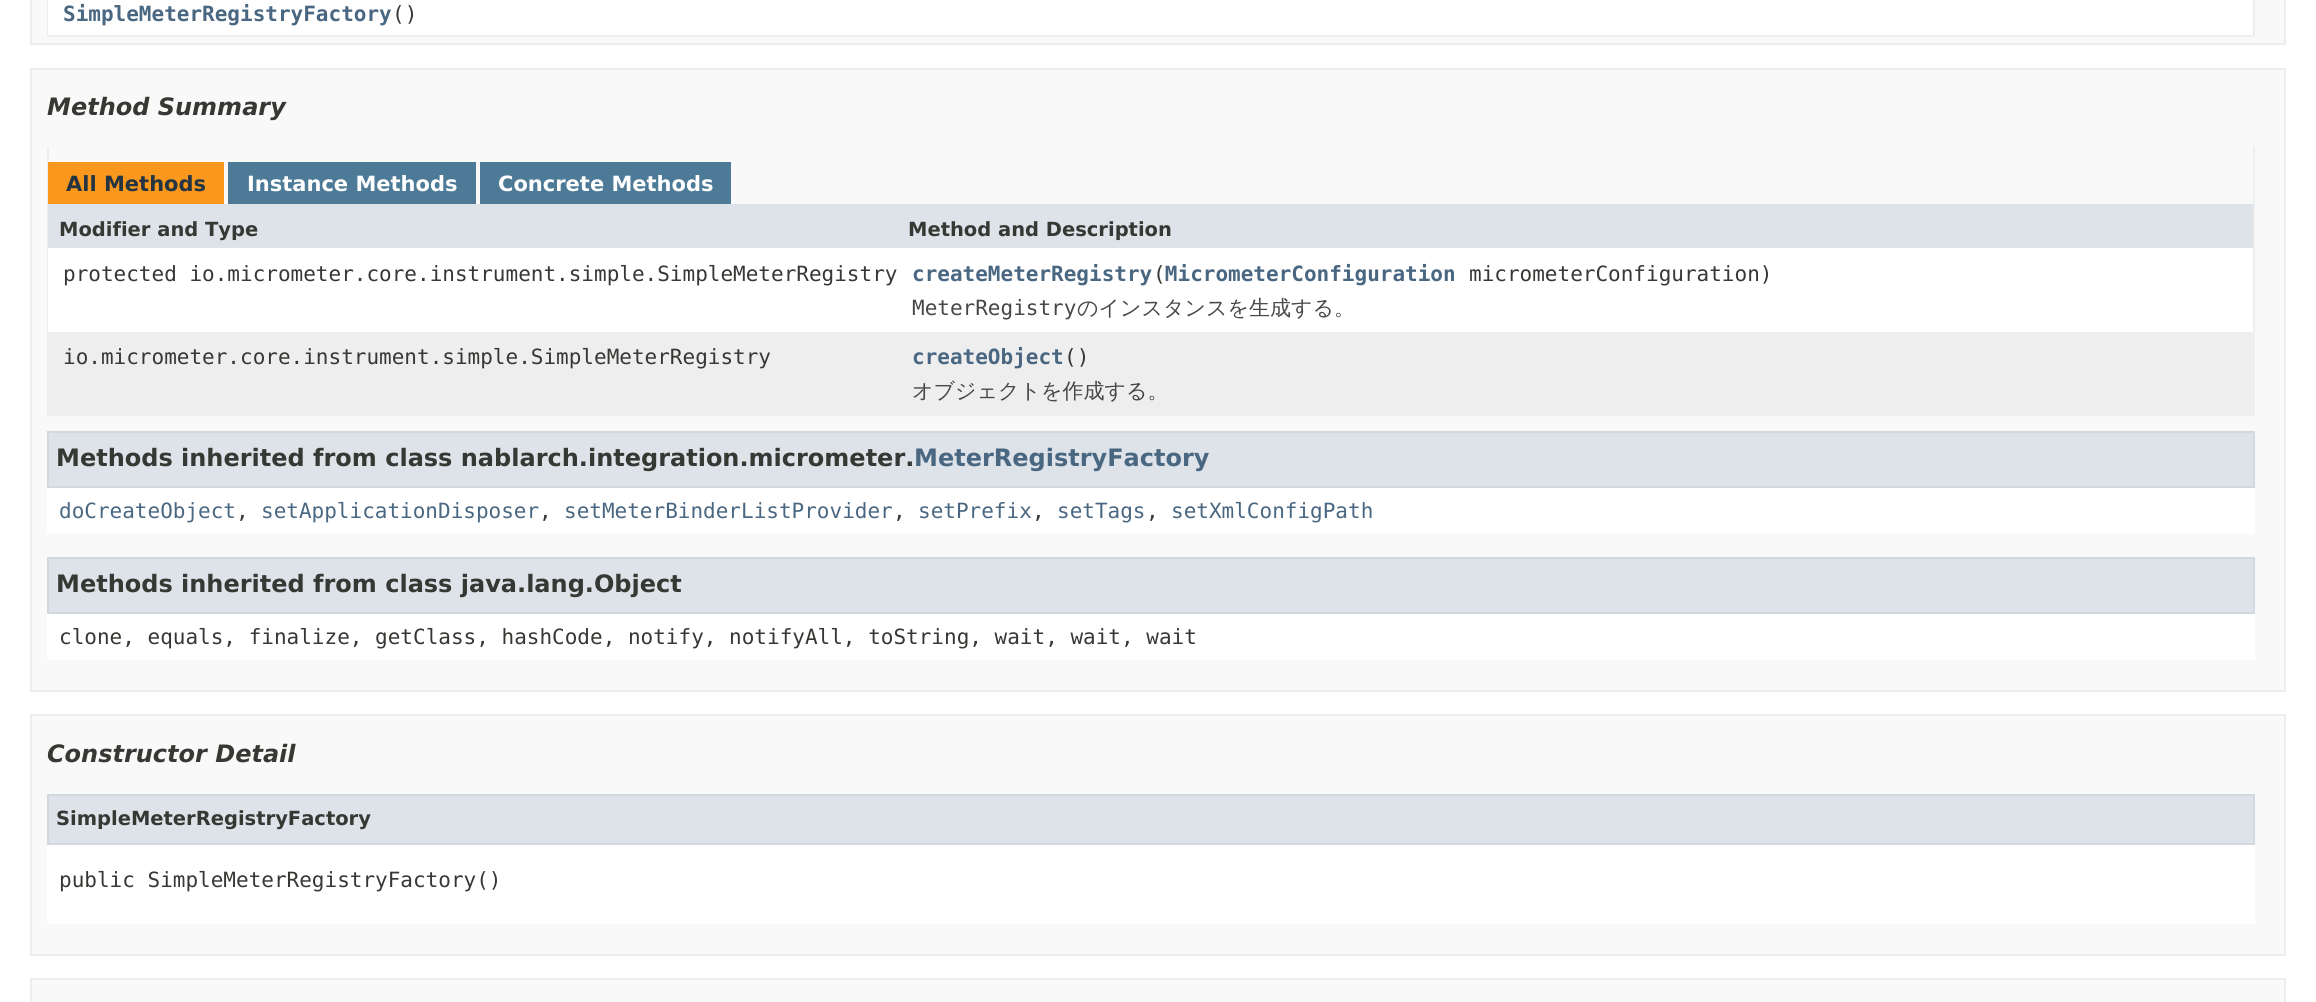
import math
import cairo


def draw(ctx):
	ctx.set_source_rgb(1, 1, 1)
	ctx.paint()
	ctx.set_source_rgb(0.973, 0.973, 0.973)
	ctx.rectangle(31, -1, 2254, 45)
	ctx.fill_preserve()
	ctx.set_source_rgb(0.929, 0.929, 0.929)
	ctx.stroke()
	ctx.set_source_rgb(0.933, 0.933, 0.933)
	ctx.rectangle(2253, 0, 2, 36)
	ctx.rectangle(47, 35, 2208, 2)
	ctx.rectangle(47, 0, 2, 36)
	ctx.fill()
	ctx.set_source_rgb(1, 1, 1)
	ctx.rectangle(48, 0, 2205, 35)
	ctx.fill()
	ctx.select_font_face('DejaVu Sans Mono', cairo.FONT_SLANT_NORMAL, cairo.FONT_WEIGHT_BOLD)
	ctx.set_font_size(21)
	ctx.set_source_rgb(0.29, 0.404, 0.51)
	ctx.move_to(63, 21)
	ctx.show_text('SimpleMeterRegistryFactory')
	ctx.select_font_face('DejaVu Sans Mono')
	ctx.set_source_rgb(0.208, 0.22, 0.2)
	ctx.move_to(392, 21)
	ctx.show_text('()')
	ctx.set_source_rgb(0.973, 0.973, 0.973)
	ctx.rectangle(31, 69, 2254, 622)
	ctx.fill_preserve()
	ctx.set_source_rgb(0.929, 0.929, 0.929)
	ctx.stroke()
	ctx.select_font_face('DejaVu Sans', cairo.FONT_SLANT_ITALIC, cairo.FONT_WEIGHT_BOLD)
	ctx.set_font_size(24)
	ctx.set_source_rgb(0.208, 0.22, 0.2)
	ctx.move_to(47, 115)
	ctx.show_text('Method Summary')
	ctx.set_source_rgb(0.933, 0.933, 0.933)
	ctx.rectangle(2253, 147, 2, 269)
	ctx.rectangle(47, 414, 2208, 2)
	ctx.rectangle(47, 147, 2, 269)
	ctx.fill()
	ctx.set_source_rgb(0.973, 0.596, 0.114)
	ctx.rectangle(48, 162, 176, 42)
	ctx.fill()
	ctx.select_font_face('DejaVu Sans', cairo.FONT_SLANT_NORMAL, cairo.FONT_WEIGHT_BOLD)
	ctx.set_font_size(21)
	ctx.set_source_rgb(0.145, 0.204, 0.255)
	ctx.move_to(66, 191)
	ctx.show_text('All Methods')
	ctx.set_source_rgb(0.302, 0.478, 0.592)
	ctx.rectangle(228, 162, 248, 42)
	ctx.fill()
	ctx.set_source_rgb(1, 1, 1)
	ctx.move_to(247, 191)
	ctx.show_text('Instance Methods')
	ctx.set_source_rgb(0.302, 0.478, 0.592)
	ctx.rectangle(480, 162, 251, 42)
	ctx.fill()
	ctx.set_source_rgb(1, 1, 1)
	ctx.move_to(498, 191)
	ctx.show_text('Concrete Methods')
	ctx.set_source_rgb(0.871, 0.89, 0.914)
	ctx.rectangle(48, 204, 2205, 44)
	ctx.fill()
	ctx.set_font_size(19.5)
	ctx.set_source_rgb(0.208, 0.22, 0.2)
	ctx.move_to(59, 236)
	ctx.show_text('Modifier and Type')
	ctx.move_to(908, 236)
	ctx.show_text('Method and Description')
	ctx.set_source_rgb(1, 1, 1)
	ctx.rectangle(48, 248, 2205, 84)
	ctx.fill()
	ctx.select_font_face('DejaVu Sans Mono')
	ctx.set_font_size(21)
	ctx.set_source_rgb(0.208, 0.22, 0.2)
	ctx.move_to(63, 281)
	ctx.show_text('protected io.micrometer.core.instrument.simple.SimpleMeterRegistry')
	ctx.select_font_face('DejaVu Sans Mono', cairo.FONT_SLANT_NORMAL, cairo.FONT_WEIGHT_BOLD)
	ctx.set_source_rgb(0.29, 0.404, 0.51)
	ctx.move_to(912, 281)
	ctx.show_text('createMeterRegistry MicrometerConfiguration')
	ctx.select_font_face('DejaVu Sans Mono')
	ctx.set_source_rgb(0.208, 0.22, 0.2)
	ctx.move_to(1153, 281)
	ctx.show_text('(')
	ctx.move_to(1469, 281)
	ctx.show_text('micrometerConfiguration)')
	ctx.set_source_rgb(0.278, 0.278, 0.278)
	ctx.move_to(912, 315)
	ctx.show_text('MeterRegistry')
	ctx.select_font_face('WenQuanYi Zen Hei Medium')
	ctx.move_to(1077, 315)
	ctx.show_text('のインスタンスを生成する。')
	ctx.set_source_rgb(0.933, 0.933, 0.937)
	ctx.rectangle(49, 332, 2204, 82)
	ctx.fill()
	ctx.select_font_face('DejaVu Sans Mono')
	ctx.set_source_rgb(0.208, 0.22, 0.2)
	ctx.move_to(63, 364)
	ctx.show_text('io.micrometer.core.instrument.simple.SimpleMeterRegistry')
	ctx.select_font_face('DejaVu Sans Mono', cairo.FONT_SLANT_NORMAL, cairo.FONT_WEIGHT_BOLD)
	ctx.set_source_rgb(0.29, 0.404, 0.51)
	ctx.move_to(912, 364)
	ctx.show_text('createObject')
	ctx.select_font_face('DejaVu Sans Mono')
	ctx.set_source_rgb(0.208, 0.22, 0.2)
	ctx.move_to(1064, 364)
	ctx.show_text('()')
	ctx.select_font_face('WenQuanYi Zen Hei Medium')
	ctx.set_source_rgb(0.278, 0.278, 0.278)
	ctx.move_to(912, 398)
	ctx.show_text('オブジェクトを作成する。')
	ctx.set_source_rgb(1, 1, 1)
	ctx.rectangle(47, 488, 2208, 46)
	ctx.fill()
	ctx.set_source_rgb(0.871, 0.89, 0.914)
	ctx.rectangle(48, 432, 2206, 55)
	ctx.fill_preserve()
	ctx.set_source_rgb(0.816, 0.851, 0.878)
	ctx.stroke()
	ctx.select_font_face('DejaVu Sans', cairo.FONT_SLANT_NORMAL, cairo.FONT_WEIGHT_BOLD)
	ctx.set_font_size(24)
	ctx.set_source_rgb(0.208, 0.22, 0.2)
	ctx.move_to(56, 466)
	ctx.show_text('Methods inherited from class nablarch.integration.micrometer.')
	ctx.set_source_rgb(0.29, 0.404, 0.51)
	ctx.move_to(914, 466)
	ctx.show_text('MeterRegistryFactory')
	ctx.select_font_face('DejaVu Sans Mono')
	ctx.set_font_size(21)
	ctx.move_to(59, 518)
	ctx.show_text('doCreateObject')
	ctx.set_source_rgb(0.208, 0.22, 0.2)
	ctx.move_to(236, 518)
	ctx.show_text(',')
	ctx.set_source_rgb(0.29, 0.404, 0.51)
	ctx.move_to(261, 518)
	ctx.show_text('setApplicationDisposer')
	ctx.set_source_rgb(0.208, 0.22, 0.2)
	ctx.move_to(539, 518)
	ctx.show_text(',')
	ctx.set_source_rgb(0.29, 0.404, 0.51)
	ctx.move_to(564, 518)
	ctx.show_text('setMeterBinderListProvider')
	ctx.set_source_rgb(0.208, 0.22, 0.2)
	ctx.move_to(893, 518)
	ctx.show_text(',')
	ctx.set_source_rgb(0.29, 0.404, 0.51)
	ctx.move_to(918, 518)
	ctx.show_text('setPrefix')
	ctx.set_source_rgb(0.208, 0.22, 0.2)
	ctx.move_to(1032, 518)
	ctx.show_text(',')
	ctx.set_source_rgb(0.29, 0.404, 0.51)
	ctx.move_to(1057, 518)
	ctx.show_text('setTags')
	ctx.set_source_rgb(0.208, 0.22, 0.2)
	ctx.move_to(1146, 518)
	ctx.show_text(',')
	ctx.set_source_rgb(0.29, 0.404, 0.51)
	ctx.move_to(1171, 518)
	ctx.show_text('setXmlConfigPath')
	ctx.set_source_rgb(1, 1, 1)
	ctx.rectangle(47, 614, 2208, 46)
	ctx.fill()
	ctx.set_source_rgb(0.871, 0.89, 0.914)
	ctx.rectangle(48, 558, 2206, 55)
	ctx.fill_preserve()
	ctx.set_source_rgb(0.816, 0.851, 0.878)
	ctx.stroke()
	ctx.select_font_face('DejaVu Sans', cairo.FONT_SLANT_NORMAL, cairo.FONT_WEIGHT_BOLD)
	ctx.set_font_size(24)
	ctx.set_source_rgb(0.208, 0.22, 0.2)
	ctx.move_to(56, 592)
	ctx.show_text('Methods inherited from class java.lang.Object')
	ctx.select_font_face('DejaVu Sans Mono')
	ctx.set_font_size(21)
	ctx.move_to(59, 644)
	ctx.show_text('clone, equals, finalize, getClass, hashCode, notify, notifyAll, toString, wait, wait, wait')
	ctx.set_source_rgb(0.973, 0.973, 0.973)
	ctx.rectangle(31, 715, 2254, 240)
	ctx.fill_preserve()
	ctx.set_source_rgb(0.929, 0.929, 0.929)
	ctx.stroke()
	ctx.select_font_face('DejaVu Sans', cairo.FONT_SLANT_ITALIC, cairo.FONT_WEIGHT_BOLD)
	ctx.set_font_size(24)
	ctx.set_source_rgb(0.208, 0.22, 0.2)
	ctx.move_to(47, 762)
	ctx.show_text('Constructor Detail')
	ctx.set_source_rgb(1, 1, 1)
	ctx.rectangle(47, 845, 2208, 79)
	ctx.fill()
	ctx.set_source_rgb(0.871, 0.89, 0.914)
	ctx.rectangle(48, 795, 2206, 49)
	ctx.fill_preserve()
	ctx.set_source_rgb(0.816, 0.851, 0.878)
	ctx.stroke()
	ctx.select_font_face('DejaVu Sans', cairo.FONT_SLANT_NORMAL, cairo.FONT_WEIGHT_BOLD)
	ctx.set_font_size(19.5)
	ctx.set_source_rgb(0.208, 0.22, 0.2)
	ctx.move_to(56, 825)
	ctx.show_text('SimpleMeterRegistryFactory')
	ctx.select_font_face('DejaVu Sans Mono')
	ctx.set_font_size(21)
	ctx.move_to(59, 887)
	ctx.show_text('public SimpleMeterRegistryFactory()')
	ctx.set_source_rgb(0.973, 0.973, 0.973)
	ctx.rectangle(31, 979, 2254, 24)
	ctx.fill_preserve()
	ctx.set_source_rgb(0.929, 0.929, 0.929)
	ctx.stroke()


surface = cairo.ImageSurface(cairo.FORMAT_RGB24, 2316, 1002)
ctx = cairo.Context(surface)
options = cairo.FontOptions()
options.set_hint_metrics(cairo.HINT_METRICS_OFF)
options.set_hint_style(cairo.HINT_STYLE_NONE)
ctx.set_font_options(options)
ctx.set_miter_limit(4)
draw(ctx)
surface.write_to_png('image.png')
